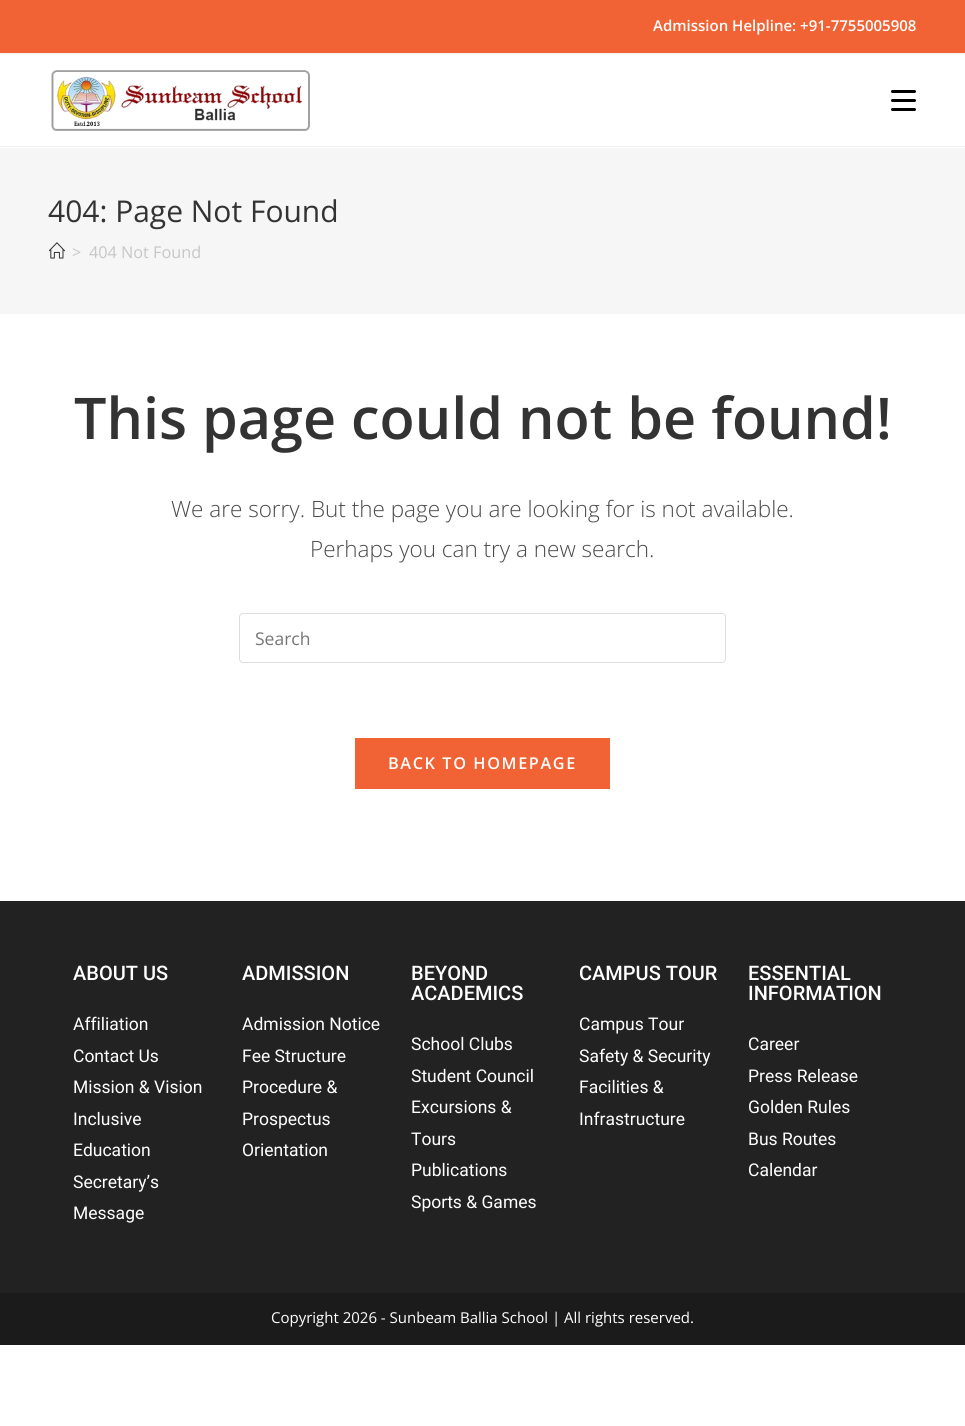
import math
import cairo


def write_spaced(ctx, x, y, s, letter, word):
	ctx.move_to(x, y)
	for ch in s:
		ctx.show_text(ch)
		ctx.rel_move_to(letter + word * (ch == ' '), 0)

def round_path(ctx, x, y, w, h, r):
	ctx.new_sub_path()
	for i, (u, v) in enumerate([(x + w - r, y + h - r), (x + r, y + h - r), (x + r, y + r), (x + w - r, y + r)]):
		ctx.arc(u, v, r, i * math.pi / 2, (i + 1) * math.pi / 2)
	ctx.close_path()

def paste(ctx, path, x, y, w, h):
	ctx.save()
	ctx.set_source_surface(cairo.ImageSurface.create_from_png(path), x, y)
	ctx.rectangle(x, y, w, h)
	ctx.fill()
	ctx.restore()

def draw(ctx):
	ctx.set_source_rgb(1, 1, 1)
	ctx.paint()
	ctx.set_source_rgb(0.945, 0.388, 0.204)
	ctx.rectangle(0, 0, 965, 53)
	ctx.fill()
	ctx.set_source_rgb(0.945, 0.945, 0.945)
	ctx.rectangle(0, 53, 965, 1)
	ctx.fill()
	ctx.select_font_face('Open Sans SemiBold')
	ctx.set_font_size(15)
	ctx.set_source_rgb(1, 1, 1)
	ctx.move_to(653, 31)
	ctx.show_text('Admission Helpline: +91-7755005908')
	ctx.set_source_rgb(0.945, 0.945, 0.945)
	ctx.rectangle(0, 146, 965, 1)
	ctx.fill()
	paste(ctx, 'media/1.png', 51, 70, 259, 61)
	ctx.set_source_rgb(0, 0, 0)
	round_path(ctx, 891, 99, 25, 3, 1.5)
	ctx.fill()
	round_path(ctx, 891, 90, 25, 3, 1.5)
	ctx.fill()
	round_path(ctx, 891, 108, 25, 3, 1.5)
	ctx.fill()
	ctx.set_source_rgb(0.961, 0.961, 0.961)
	ctx.rectangle(0, 148, 965, 166)
	ctx.fill()
	ctx.select_font_face('Open Sans')
	ctx.set_font_size(30)
	ctx.set_source_rgb(0.2, 0.2, 0.2)
	ctx.move_to(48, 222)
	ctx.show_text('404: Page Not Found')
	paste(ctx, 'media/2.png', 49, 242, 16, 17)
	ctx.set_font_size(16.25)
	ctx.set_source_rgb(0.776, 0.776, 0.776)
	ctx.move_to(72, 258)
	ctx.show_text('>')
	ctx.move_to(89, 258)
	ctx.show_text('404 Not Found')
	ctx.select_font_face('Open Sans SemiBold')
	ctx.set_font_size(57.5)
	ctx.set_source_rgb(0.2, 0.2, 0.2)
	ctx.move_to(74, 439)
	ctx.show_text('This page could not be found!')
	ctx.select_font_face('Open Sans Light')
	ctx.set_font_size(22.5)
	ctx.set_source_rgb(0.29, 0.29, 0.29)
	ctx.move_to(171, 517)
	ctx.show_text('We are sorry. But the page you are looking for is not available.')
	ctx.move_to(310, 557)
	ctx.show_text('Perhaps you can try a new search.')
	round_path(ctx, 239.5, 613.5, 486, 49, 3.5)
	ctx.set_source_rgb(0.867, 0.867, 0.867)
	ctx.set_line_width(1)
	ctx.stroke()
	ctx.select_font_face('Open Sans')
	ctx.set_font_size(17.5)
	ctx.set_source_rgb(0.459, 0.459, 0.459)
	ctx.move_to(255, 645)
	ctx.show_text('Search')
	ctx.set_source_rgb(0.945, 0.388, 0.204)
	ctx.rectangle(355, 738, 255, 51)
	ctx.fill()
	ctx.select_font_face('Open Sans SemiBold')
	ctx.set_font_size(16.25)
	ctx.set_source_rgb(1, 1, 1)
	write_spaced(ctx, 388, 769, 'BACK TO HOMEPAGE', 1.6, 0)
	ctx.set_source_rgb(0.133, 0.133, 0.133)
	ctx.rectangle(0, 901, 965, 392)
	ctx.fill()
	ctx.select_font_face('Roboto Medium')
	ctx.set_font_size(20)
	ctx.set_source_rgb(1, 1, 1)
	ctx.move_to(73, 980)
	ctx.show_text('ABOUT US')
	ctx.select_font_face('Roboto')
	ctx.set_font_size(17.5)
	for x, y, s in [
		(73, 1030, 'Affiliation'),
		(73, 1062, 'Contact Us'),
		(73, 1093, 'Mission & Vision'),
		(73, 1125, 'Inclusive'),
		(73, 1156, 'Education'),
		(73, 1188, 'Secretary’s'),
		(73, 1219, 'Message'),
	]:
		ctx.move_to(x, y)
		ctx.show_text(s)
	ctx.select_font_face('Roboto Medium')
	ctx.set_font_size(20)
	ctx.move_to(242, 980)
	ctx.show_text('ADMISSION')
	ctx.select_font_face('Roboto')
	ctx.set_font_size(17.5)
	for x, y, s in [
		(242, 1030, 'Admission Notice'),
		(242, 1062, 'Fee Structure'),
		(242, 1093, 'Procedure &'),
		(242, 1125, 'Prospectus'),
		(242, 1156, 'Orientation'),
	]:
		ctx.move_to(x, y)
		ctx.show_text(s)
	ctx.select_font_face('Roboto Medium')
	ctx.set_font_size(20)
	ctx.move_to(411, 980)
	ctx.show_text('BEYOND')
	ctx.move_to(411, 1000)
	ctx.show_text('ACADEMICS')
	ctx.select_font_face('Roboto')
	ctx.set_font_size(17.5)
	for x, y, s in [
		(411, 1050, 'School Clubs'),
		(411, 1082, 'Student Council'),
		(411, 1113, 'Excursions &'),
		(411, 1145, 'Tours'),
		(411, 1176, 'Publications'),
		(411, 1208, 'Sports & Games'),
	]:
		ctx.move_to(x, y)
		ctx.show_text(s)
	ctx.select_font_face('Roboto Medium')
	ctx.set_font_size(20)
	ctx.move_to(579, 980)
	ctx.show_text('CAMPUS TOUR')
	ctx.select_font_face('Roboto')
	ctx.set_font_size(17.5)
	for x, y, s in [
		(579, 1030, 'Campus Tour'),
		(579, 1062, 'Safety & Security'),
		(579, 1093, 'Facilities &'),
		(579, 1125, 'Infrastructure'),
	]:
		ctx.move_to(x, y)
		ctx.show_text(s)
	ctx.select_font_face('Roboto Medium')
	ctx.set_font_size(20)
	ctx.move_to(748, 980)
	ctx.show_text('ESSENTIAL')
	ctx.move_to(748, 1000)
	ctx.show_text('INFORMATION')
	ctx.select_font_face('Roboto')
	ctx.set_font_size(17.5)
	for x, y, s in [
		(748, 1050, 'Career'),
		(748, 1082, 'Press Release'),
		(748, 1113, 'Golden Rules'),
		(748, 1145, 'Bus Routes'),
		(748, 1176, 'Calendar'),
	]:
		ctx.move_to(x, y)
		ctx.show_text(s)
	ctx.set_source_rgb(0.106, 0.106, 0.106)
	ctx.rectangle(0, 1293, 965, 52)
	ctx.fill()
	ctx.select_font_face('Open Sans')
	ctx.set_font_size(15)
	ctx.set_source_rgb(1, 1, 1)
	ctx.move_to(271, 1323)
	ctx.show_text('Copyright 2026 - Sunbeam Ballia School | All rights reserved.')


surface = cairo.ImageSurface(cairo.FORMAT_RGB24, 965, 1426)
ctx = cairo.Context(surface)
options = cairo.FontOptions()
options.set_hint_metrics(cairo.HINT_METRICS_OFF)
options.set_hint_style(cairo.HINT_STYLE_NONE)
ctx.set_font_options(options)
ctx.set_miter_limit(4)
draw(ctx)
surface.write_to_png('image.png')
